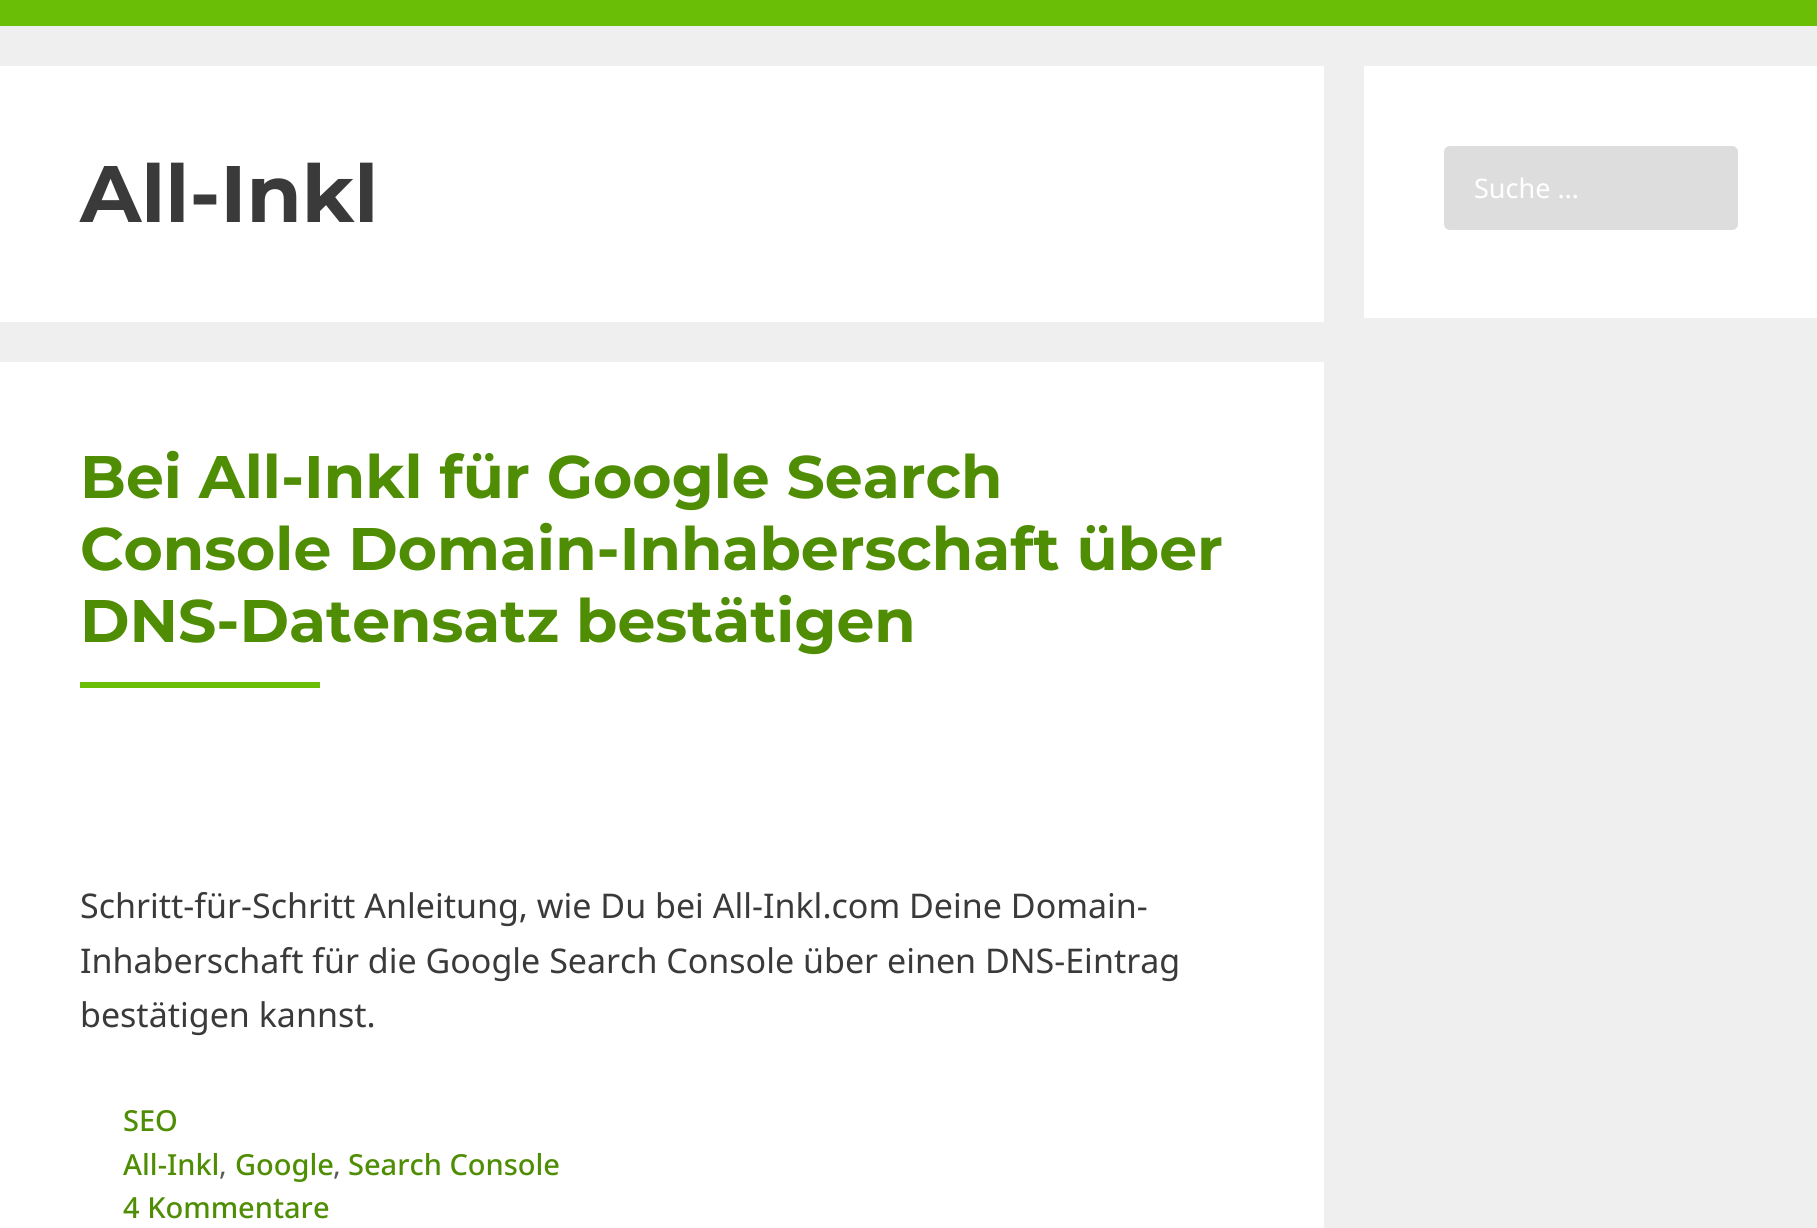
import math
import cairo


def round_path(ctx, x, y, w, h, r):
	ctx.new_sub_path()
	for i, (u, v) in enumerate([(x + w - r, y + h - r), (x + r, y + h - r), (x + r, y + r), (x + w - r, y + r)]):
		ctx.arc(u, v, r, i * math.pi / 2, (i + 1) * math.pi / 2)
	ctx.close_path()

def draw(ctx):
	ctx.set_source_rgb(0.937, 0.937, 0.937)
	ctx.paint()
	ctx.set_source_rgb(0.416, 0.749, 0.024)
	ctx.rectangle(0, 0, 1817, 26)
	ctx.fill()
	ctx.set_source_rgb(1, 1, 1)
	ctx.rectangle(0, 66, 1324, 256)
	ctx.fill()
	ctx.select_font_face('Montserrat', cairo.FONT_SLANT_NORMAL, cairo.FONT_WEIGHT_BOLD)
	ctx.set_font_size(80)
	ctx.set_source_rgb(0.227, 0.227, 0.227)
	ctx.move_to(80, 222)
	ctx.show_text('All-Inkl')
	ctx.set_source_rgb(1, 1, 1)
	ctx.rectangle(0, 362, 1324, 866)
	ctx.fill()
	ctx.set_font_size(60)
	ctx.set_source_rgb(0.31, 0.557, 0.016)
	for x, y, s in [
		(80, 498, 'Bei All-Inkl für Google Search'),
		(80, 570, 'Console Domain-Inhaberschaft über'),
		(80, 642, 'DNS-Datensatz bestätigen'),
	]:
		ctx.move_to(x, y)
		ctx.show_text(s)
	ctx.set_source_rgb(0.416, 0.749, 0.024)
	ctx.rectangle(80, 682, 240, 6)
	ctx.fill()
	ctx.select_font_face('Noto Sans')
	ctx.set_font_size(34)
	ctx.set_source_rgb(0.227, 0.227, 0.227)
	for x, y, s in [
		(80, 918, 'Schritt-für-Schritt Anleitung, wie Du bei All-Inkl.com Deine Domain-'),
		(80, 973, 'Inhaberschaft für die Google Search Console über einen DNS-Eintrag'),
		(80, 1027, 'bestätigen kannst.'),
	]:
		ctx.move_to(x, y)
		ctx.show_text(s)
	ctx.select_font_face('Noto Sans Medium')
	ctx.set_font_size(29)
	ctx.set_source_rgb(0.31, 0.557, 0.016)
	ctx.move_to(123, 1131)
	ctx.show_text('SEO')
	ctx.move_to(123, 1175)
	ctx.show_text('All-Inkl')
	ctx.select_font_face('Noto Sans')
	ctx.set_source_rgb(0.349, 0.349, 0.349)
	ctx.move_to(219, 1175)
	ctx.show_text(',')
	ctx.select_font_face('Noto Sans Medium')
	ctx.set_source_rgb(0.31, 0.557, 0.016)
	ctx.move_to(235, 1175)
	ctx.show_text('Google')
	ctx.select_font_face('Noto Sans')
	ctx.set_source_rgb(0.349, 0.349, 0.349)
	ctx.move_to(333, 1175)
	ctx.show_text(',')
	ctx.select_font_face('Noto Sans Medium')
	ctx.set_source_rgb(0.31, 0.557, 0.016)
	ctx.move_to(348, 1175)
	ctx.show_text('Search Console')
	ctx.move_to(123, 1218)
	ctx.show_text('4 Kommentare')
	ctx.set_source_rgb(1, 1, 1)
	ctx.rectangle(1364, 66, 453, 252)
	ctx.fill()
	ctx.set_source_rgb(0.867, 0.867, 0.867)
	round_path(ctx, 1444, 146, 294, 84, 6)
	ctx.fill()
	ctx.select_font_face('Noto Sans')
	ctx.set_font_size(27)
	ctx.set_source_rgb(1, 1, 1)
	ctx.move_to(1474, 198)
	ctx.show_text('Suche …')


surface = cairo.ImageSurface(cairo.FORMAT_RGB24, 1817, 1228)
ctx = cairo.Context(surface)
options = cairo.FontOptions()
options.set_hint_metrics(cairo.HINT_METRICS_OFF)
options.set_hint_style(cairo.HINT_STYLE_NONE)
ctx.set_font_options(options)
ctx.set_miter_limit(4)
draw(ctx)
surface.write_to_png('image.png')
